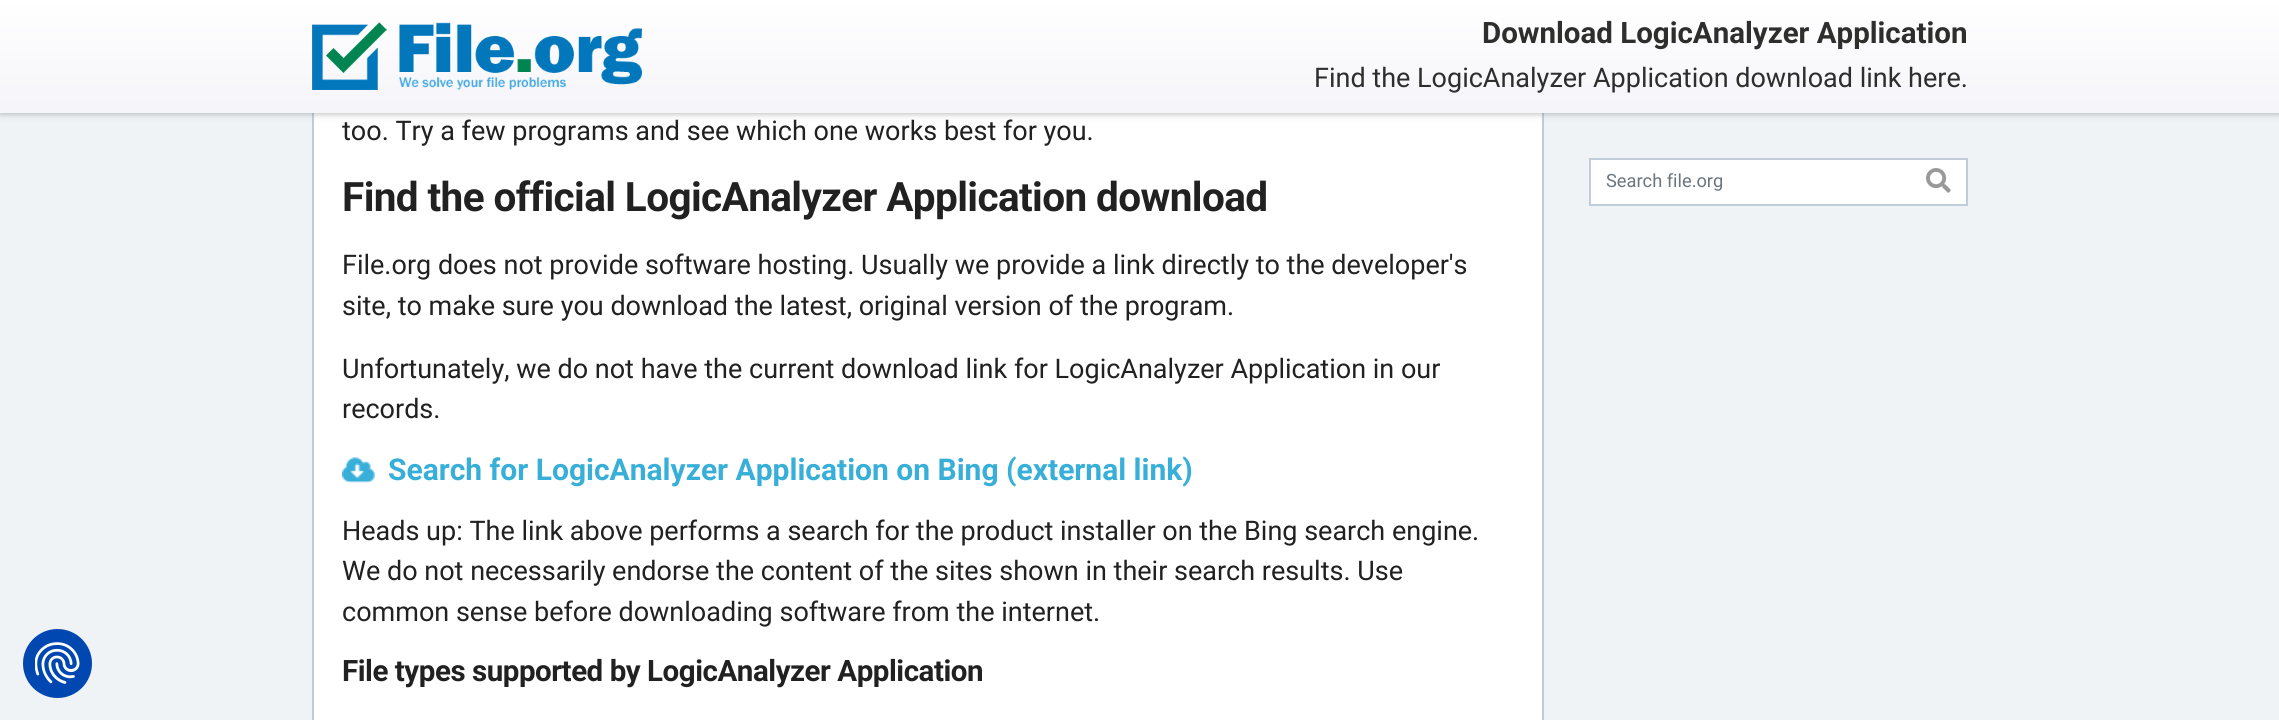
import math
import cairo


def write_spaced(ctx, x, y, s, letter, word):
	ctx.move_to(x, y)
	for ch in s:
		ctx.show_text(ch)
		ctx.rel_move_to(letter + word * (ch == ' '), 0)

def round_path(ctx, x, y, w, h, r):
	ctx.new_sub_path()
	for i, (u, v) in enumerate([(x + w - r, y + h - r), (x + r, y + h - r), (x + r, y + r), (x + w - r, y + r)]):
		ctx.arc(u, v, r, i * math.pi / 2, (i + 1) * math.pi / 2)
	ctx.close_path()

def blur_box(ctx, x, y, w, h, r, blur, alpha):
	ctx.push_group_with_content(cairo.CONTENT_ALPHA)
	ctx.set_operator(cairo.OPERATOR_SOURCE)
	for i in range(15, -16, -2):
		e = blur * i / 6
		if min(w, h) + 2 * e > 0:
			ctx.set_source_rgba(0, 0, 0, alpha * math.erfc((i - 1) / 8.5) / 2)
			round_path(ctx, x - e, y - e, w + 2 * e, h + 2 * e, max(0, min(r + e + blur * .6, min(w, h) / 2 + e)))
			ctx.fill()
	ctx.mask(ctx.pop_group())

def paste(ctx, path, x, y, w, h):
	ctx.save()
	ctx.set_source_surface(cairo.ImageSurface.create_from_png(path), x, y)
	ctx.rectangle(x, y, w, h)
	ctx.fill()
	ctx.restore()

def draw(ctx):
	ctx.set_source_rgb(0.937, 0.953, 0.961)
	ctx.paint()
	ctx.set_source_rgb(1, 1, 1)
	ctx.rectangle(314, 113, 1228, 607)
	ctx.fill()
	ctx.rectangle(313, -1, 1230, 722)
	ctx.set_source_rgb(0.753, 0.804, 0.851)
	ctx.stroke()
	ctx.set_source_rgb(0.471, 0.471, 0.471)
	blur_box(ctx, 0, 3, 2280, 113, 0, 3, 0.2)
	ctx.set_source_rgb(0.196, 0.196, 0.196)
	blur_box(ctx, 0, 2, 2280, 112, 0, 2, 0.15)
	gradient = cairo.LinearGradient(1140, 0, 1140, 113)
	gradient.add_color_stop_rgba(0, 1, 1, 1, 1)
	gradient.add_color_stop_rgba(1, 0.961, 0.961, 0.98, 1)
	ctx.set_source(gradient)
	ctx.rectangle(0, 0, 2279, 113)
	ctx.fill()
	paste(ctx, 'media/1.png', 312, 22, 330, 68)
	ctx.select_font_face('Roboto', cairo.FONT_SLANT_NORMAL, cairo.FONT_WEIGHT_BOLD)
	ctx.set_font_size(29.5)
	ctx.set_source_rgb(0.18, 0.18, 0.176)
	ctx.move_to(1482, 43)
	ctx.show_text('Download LogicAnalyzer Application')
	ctx.select_font_face('Roboto')
	ctx.set_font_size(27)
	ctx.move_to(1314, 87)
	ctx.show_text('Find the LogicAnalyzer Application download link here.')
	ctx.set_source_rgb(0, 0.278, 0.698)
	ctx.new_path()
	ctx.arc(57.5, 663.5, 33.5, 0, 2 * math.pi)
	ctx.fill_preserve()
	ctx.stroke()
	paste(ctx, 'media/2.png', 35, 642, 45, 42)
	ctx.set_source_rgb(0.129, 0.129, 0.129)
	ctx.move_to(342, 140)
	ctx.show_text('too. Try a few programs and see which one works best for you.')
	ctx.select_font_face('Roboto', cairo.FONT_SLANT_NORMAL, cairo.FONT_WEIGHT_BOLD)
	ctx.set_font_size(40.5)
	write_spaced(ctx, 342, 211, 'Find the official LogicAnalyzer Application download', -0.6, 0)
	ctx.select_font_face('Roboto')
	ctx.set_font_size(27)
	for x, y, s in [
		(342, 274, 'File.org does not provide software hosting. Usually we provide a link directly to the developer\'s'),
		(342, 315, 'site, to make sure you download the latest, original version of the program.'),
		(342, 378, 'Unfortunately, we do not have the current download link for LogicAnalyzer Application in our'),
		(342, 418, 'records.'),
	]:
		ctx.move_to(x, y)
		ctx.show_text(s)
	paste(ctx, 'media/3.png', 342, 457, 33, 26)
	ctx.select_font_face('Roboto', cairo.FONT_SLANT_NORMAL, cairo.FONT_WEIGHT_BOLD)
	ctx.set_font_size(30)
	ctx.set_source_rgb(0.22, 0.686, 0.847)
	ctx.move_to(388, 480)
	ctx.show_text('Search for LogicAnalyzer Application on Bing (external link)')
	ctx.select_font_face('Roboto')
	ctx.set_font_size(27)
	ctx.set_source_rgb(0.129, 0.129, 0.129)
	for x, y, s in [
		(342, 540, 'Heads up: The link above performs a search for the product installer on the Bing search engine.'),
		(342, 580, 'We do not necessarily endorse the content of the sites shown in their search results. Use'),
		(342, 621, 'common sense before downloading software from the internet.'),
	]:
		ctx.move_to(x, y)
		ctx.show_text(s)
	ctx.select_font_face('Roboto', cairo.FONT_SLANT_NORMAL, cairo.FONT_WEIGHT_BOLD)
	ctx.set_font_size(29.5)
	write_spaced(ctx, 342, 681, 'File types supported by LogicAnalyzer Application', -0.45, 0)
	ctx.set_source_rgb(1, 1, 1)
	ctx.rectangle(1590, 159, 377, 46)
	ctx.fill_preserve()
	ctx.set_source_rgb(0.753, 0.804, 0.851)
	ctx.stroke()
	ctx.select_font_face('Roboto')
	ctx.set_font_size(18.25)
	ctx.set_source_rgb(0.424, 0.459, 0.49)
	ctx.move_to(1606, 187)
	ctx.show_text('Search file.org')
	paste(ctx, 'media/4.png', 1926, 168, 25, 25)


surface = cairo.ImageSurface(cairo.FORMAT_RGB24, 2279, 720)
ctx = cairo.Context(surface)
options = cairo.FontOptions()
options.set_hint_metrics(cairo.HINT_METRICS_OFF)
options.set_hint_style(cairo.HINT_STYLE_NONE)
ctx.set_font_options(options)
ctx.set_miter_limit(4)
draw(ctx)
surface.write_to_png('image.png')
